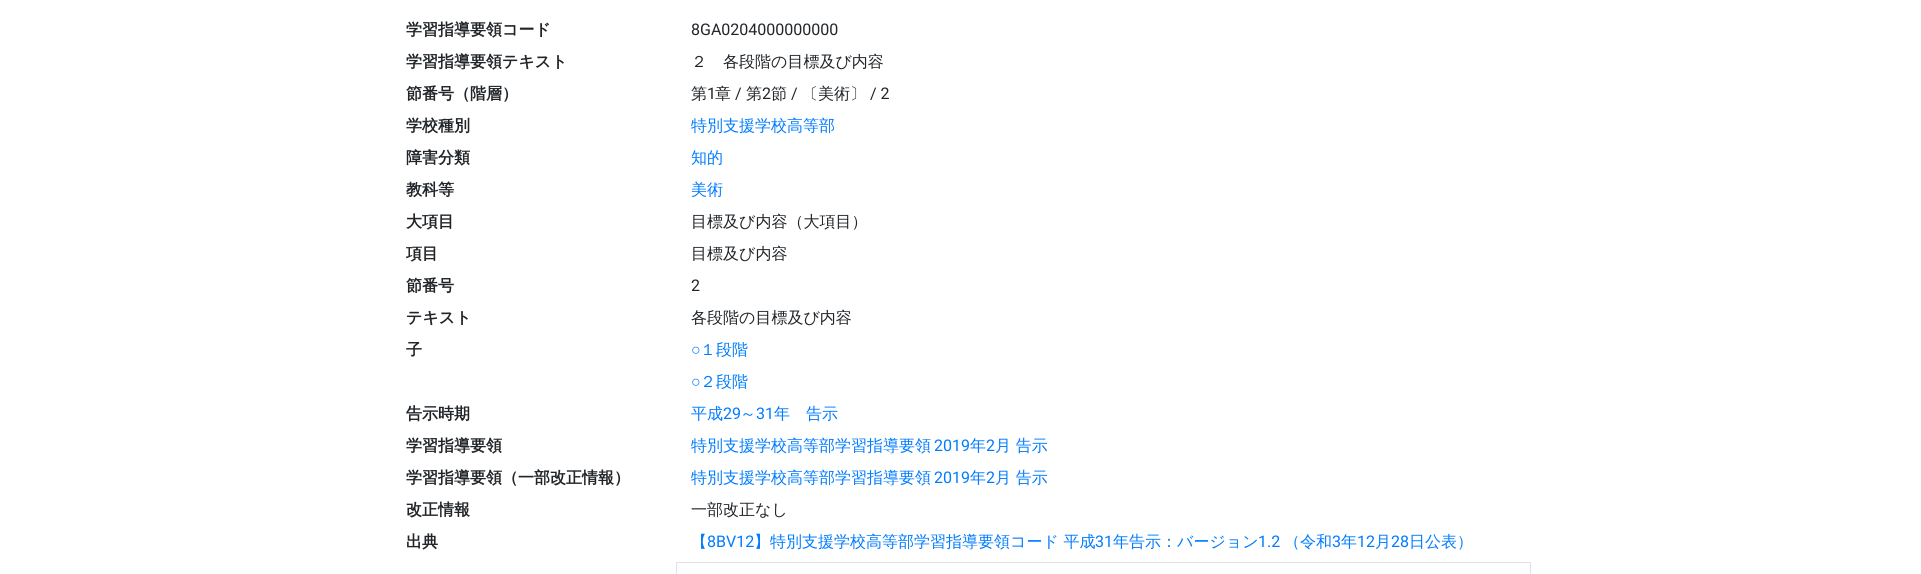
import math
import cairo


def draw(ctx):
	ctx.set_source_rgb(1, 1, 1)
	ctx.paint()
	ctx.select_font_face('WenQuanYi Zen Hei', cairo.FONT_SLANT_NORMAL, cairo.FONT_WEIGHT_BOLD)
	ctx.set_font_size(16)
	ctx.set_source_rgb(0.129, 0.145, 0.161)
	ctx.move_to(406, 35)
	ctx.show_text('学習指導要領コード')
	ctx.select_font_face('Roboto')
	ctx.move_to(691, 35)
	ctx.show_text('8GA0204000000000')
	ctx.select_font_face('WenQuanYi Zen Hei', cairo.FONT_SLANT_NORMAL, cairo.FONT_WEIGHT_BOLD)
	ctx.move_to(406, 67)
	ctx.show_text('学習指導要領テキスト')
	ctx.select_font_face('WenQuanYi Zen Hei Medium')
	ctx.move_to(691, 67)
	ctx.show_text('２　各段階の目標及び内容')
	ctx.select_font_face('WenQuanYi Zen Hei', cairo.FONT_SLANT_NORMAL, cairo.FONT_WEIGHT_BOLD)
	ctx.move_to(406, 99)
	ctx.show_text('節番号（階層）')
	ctx.select_font_face('WenQuanYi Zen Hei Medium')
	ctx.move_to(691, 99)
	ctx.show_text('第')
	ctx.select_font_face('Roboto')
	ctx.move_to(707, 99)
	ctx.show_text('1')
	ctx.select_font_face('WenQuanYi Zen Hei Medium')
	ctx.move_to(715, 99)
	ctx.show_text('章')
	ctx.select_font_face('Roboto')
	ctx.move_to(735, 99)
	ctx.show_text('/')
	ctx.select_font_face('WenQuanYi Zen Hei Medium')
	ctx.move_to(746, 99)
	ctx.show_text('第')
	ctx.select_font_face('Roboto')
	ctx.move_to(762, 99)
	ctx.show_text('2')
	ctx.select_font_face('WenQuanYi Zen Hei Medium')
	ctx.move_to(771, 99)
	ctx.show_text('節')
	ctx.select_font_face('Roboto')
	ctx.move_to(791, 99)
	ctx.show_text('/')
	ctx.select_font_face('WenQuanYi Zen Hei Medium')
	ctx.move_to(802, 99)
	ctx.show_text('〔美術〕')
	ctx.select_font_face('Roboto')
	ctx.move_to(870, 99)
	ctx.show_text('/ 2')
	ctx.select_font_face('WenQuanYi Zen Hei', cairo.FONT_SLANT_NORMAL, cairo.FONT_WEIGHT_BOLD)
	ctx.move_to(406, 131)
	ctx.show_text('学校種別')
	ctx.select_font_face('WenQuanYi Zen Hei Medium')
	ctx.set_source_rgb(0, 0.482, 1)
	ctx.move_to(691, 131)
	ctx.show_text('特別支援学校高等部')
	ctx.select_font_face('WenQuanYi Zen Hei', cairo.FONT_SLANT_NORMAL, cairo.FONT_WEIGHT_BOLD)
	ctx.set_source_rgb(0.129, 0.145, 0.161)
	ctx.move_to(406, 163)
	ctx.show_text('障害分類')
	ctx.select_font_face('WenQuanYi Zen Hei Medium')
	ctx.set_source_rgb(0, 0.482, 1)
	ctx.move_to(691, 163)
	ctx.show_text('知的')
	ctx.select_font_face('WenQuanYi Zen Hei', cairo.FONT_SLANT_NORMAL, cairo.FONT_WEIGHT_BOLD)
	ctx.set_source_rgb(0.129, 0.145, 0.161)
	ctx.move_to(406, 195)
	ctx.show_text('教科等')
	ctx.select_font_face('WenQuanYi Zen Hei Medium')
	ctx.set_source_rgb(0, 0.482, 1)
	ctx.move_to(691, 195)
	ctx.show_text('美術')
	ctx.select_font_face('WenQuanYi Zen Hei', cairo.FONT_SLANT_NORMAL, cairo.FONT_WEIGHT_BOLD)
	ctx.set_source_rgb(0.129, 0.145, 0.161)
	ctx.move_to(406, 227)
	ctx.show_text('大項目')
	ctx.select_font_face('WenQuanYi Zen Hei Medium')
	ctx.move_to(691, 227)
	ctx.show_text('目標及び内容（大項目）')
	ctx.select_font_face('WenQuanYi Zen Hei', cairo.FONT_SLANT_NORMAL, cairo.FONT_WEIGHT_BOLD)
	ctx.move_to(406, 259)
	ctx.show_text('項目')
	ctx.select_font_face('WenQuanYi Zen Hei Medium')
	ctx.move_to(691, 259)
	ctx.show_text('目標及び内容')
	ctx.select_font_face('WenQuanYi Zen Hei', cairo.FONT_SLANT_NORMAL, cairo.FONT_WEIGHT_BOLD)
	ctx.move_to(406, 291)
	ctx.show_text('節番号')
	ctx.select_font_face('Roboto')
	ctx.move_to(691, 291)
	ctx.show_text('2')
	ctx.select_font_face('WenQuanYi Zen Hei', cairo.FONT_SLANT_NORMAL, cairo.FONT_WEIGHT_BOLD)
	ctx.move_to(406, 323)
	ctx.show_text('テキスト')
	ctx.select_font_face('WenQuanYi Zen Hei Medium')
	ctx.move_to(691, 323)
	ctx.show_text('各段階の目標及び内容')
	ctx.select_font_face('WenQuanYi Zen Hei', cairo.FONT_SLANT_NORMAL, cairo.FONT_WEIGHT_BOLD)
	ctx.move_to(406, 355)
	ctx.show_text('子')
	ctx.select_font_face('Liberation Sans')
	ctx.set_source_rgb(0, 0.482, 1)
	ctx.move_to(691, 355)
	ctx.show_text('○')
	ctx.select_font_face('WenQuanYi Zen Hei Medium')
	ctx.move_to(700, 355)
	ctx.show_text('１段階')
	ctx.select_font_face('Liberation Sans')
	ctx.move_to(691, 387)
	ctx.show_text('○')
	ctx.select_font_face('WenQuanYi Zen Hei Medium')
	ctx.move_to(700, 387)
	ctx.show_text('２段階')
	ctx.select_font_face('WenQuanYi Zen Hei', cairo.FONT_SLANT_NORMAL, cairo.FONT_WEIGHT_BOLD)
	ctx.set_source_rgb(0.129, 0.145, 0.161)
	ctx.move_to(406, 419)
	ctx.show_text('告示時期')
	ctx.select_font_face('WenQuanYi Zen Hei Medium')
	ctx.set_source_rgb(0, 0.482, 1)
	ctx.move_to(691, 419)
	ctx.show_text('平成')
	ctx.select_font_face('Roboto')
	ctx.move_to(723, 419)
	ctx.show_text('29')
	ctx.select_font_face('WenQuanYi Zen Hei Medium')
	ctx.move_to(740, 419)
	ctx.show_text('～')
	ctx.select_font_face('Roboto')
	ctx.move_to(756, 419)
	ctx.show_text('31')
	ctx.select_font_face('WenQuanYi Zen Hei Medium')
	ctx.move_to(774, 419)
	ctx.show_text('年　告示')
	ctx.select_font_face('WenQuanYi Zen Hei', cairo.FONT_SLANT_NORMAL, cairo.FONT_WEIGHT_BOLD)
	ctx.set_source_rgb(0.129, 0.145, 0.161)
	ctx.move_to(406, 451)
	ctx.show_text('学習指導要領')
	ctx.select_font_face('WenQuanYi Zen Hei Medium')
	ctx.set_source_rgb(0, 0.482, 1)
	ctx.move_to(691, 451)
	ctx.show_text('特別支援学校高等部学習指導要領')
	ctx.select_font_face('Roboto')
	ctx.move_to(934, 451)
	ctx.show_text('2019')
	ctx.select_font_face('WenQuanYi Zen Hei Medium')
	ctx.move_to(970, 451)
	ctx.show_text('年')
	ctx.select_font_face('Roboto')
	ctx.move_to(986, 451)
	ctx.show_text('2')
	ctx.select_font_face('WenQuanYi Zen Hei Medium')
	ctx.move_to(995, 451)
	ctx.show_text('月 告示')
	ctx.select_font_face('WenQuanYi Zen Hei', cairo.FONT_SLANT_NORMAL, cairo.FONT_WEIGHT_BOLD)
	ctx.set_source_rgb(0.129, 0.145, 0.161)
	ctx.move_to(406, 483)
	ctx.show_text('学習指導要領（一部改正情報）')
	ctx.select_font_face('WenQuanYi Zen Hei Medium')
	ctx.set_source_rgb(0, 0.482, 1)
	ctx.move_to(691, 483)
	ctx.show_text('特別支援学校高等部学習指導要領')
	ctx.select_font_face('Roboto')
	ctx.move_to(934, 483)
	ctx.show_text('2019')
	ctx.select_font_face('WenQuanYi Zen Hei Medium')
	ctx.move_to(970, 483)
	ctx.show_text('年')
	ctx.select_font_face('Roboto')
	ctx.move_to(986, 483)
	ctx.show_text('2')
	ctx.select_font_face('WenQuanYi Zen Hei Medium')
	ctx.move_to(995, 483)
	ctx.show_text('月 告示')
	ctx.select_font_face('WenQuanYi Zen Hei', cairo.FONT_SLANT_NORMAL, cairo.FONT_WEIGHT_BOLD)
	ctx.set_source_rgb(0.129, 0.145, 0.161)
	ctx.move_to(406, 515)
	ctx.show_text('改正情報')
	ctx.select_font_face('WenQuanYi Zen Hei Medium')
	ctx.move_to(691, 515)
	ctx.show_text('一部改正なし')
	ctx.select_font_face('WenQuanYi Zen Hei', cairo.FONT_SLANT_NORMAL, cairo.FONT_WEIGHT_BOLD)
	ctx.move_to(406, 547)
	ctx.show_text('出典')
	ctx.select_font_face('WenQuanYi Zen Hei Medium')
	ctx.set_source_rgb(0, 0.482, 1)
	ctx.move_to(691, 547)
	ctx.show_text('【')
	ctx.select_font_face('Roboto')
	ctx.move_to(707, 547)
	ctx.show_text('8BV12')
	ctx.select_font_face('WenQuanYi Zen Hei Medium')
	ctx.move_to(754, 547)
	ctx.show_text('】特別支援学校高等部学習指導要領コード 平成')
	ctx.select_font_face('Roboto')
	ctx.move_to(1095, 547)
	ctx.show_text('31')
	ctx.select_font_face('WenQuanYi Zen Hei Medium')
	ctx.move_to(1113, 547)
	ctx.show_text('年告示：バージョン')
	ctx.select_font_face('Roboto')
	ctx.move_to(1258, 547)
	ctx.show_text('1.2')
	ctx.select_font_face('WenQuanYi Zen Hei Medium')
	ctx.move_to(1284, 547)
	ctx.show_text('（令和')
	ctx.select_font_face('Roboto')
	ctx.move_to(1332, 547)
	ctx.show_text('3')
	ctx.select_font_face('WenQuanYi Zen Hei Medium')
	ctx.move_to(1341, 547)
	ctx.show_text('年')
	ctx.select_font_face('Roboto')
	ctx.move_to(1357, 547)
	ctx.show_text('12')
	ctx.select_font_face('WenQuanYi Zen Hei Medium')
	ctx.move_to(1375, 547)
	ctx.show_text('月')
	ctx.select_font_face('Roboto')
	ctx.move_to(1391, 547)
	ctx.show_text('28')
	ctx.select_font_face('WenQuanYi Zen Hei Medium')
	ctx.move_to(1409, 547)
	ctx.show_text('日公表）')
	ctx.rectangle(676.5, 562.5, 854, 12)
	ctx.set_source_rgb(0.871, 0.886, 0.902)
	ctx.set_line_width(1)
	ctx.stroke()


surface = cairo.ImageSurface(cairo.FORMAT_RGB24, 1921, 574)
ctx = cairo.Context(surface)
options = cairo.FontOptions()
options.set_hint_metrics(cairo.HINT_METRICS_OFF)
options.set_hint_style(cairo.HINT_STYLE_NONE)
ctx.set_font_options(options)
ctx.set_miter_limit(4)
draw(ctx)
surface.write_to_png('image.png')
